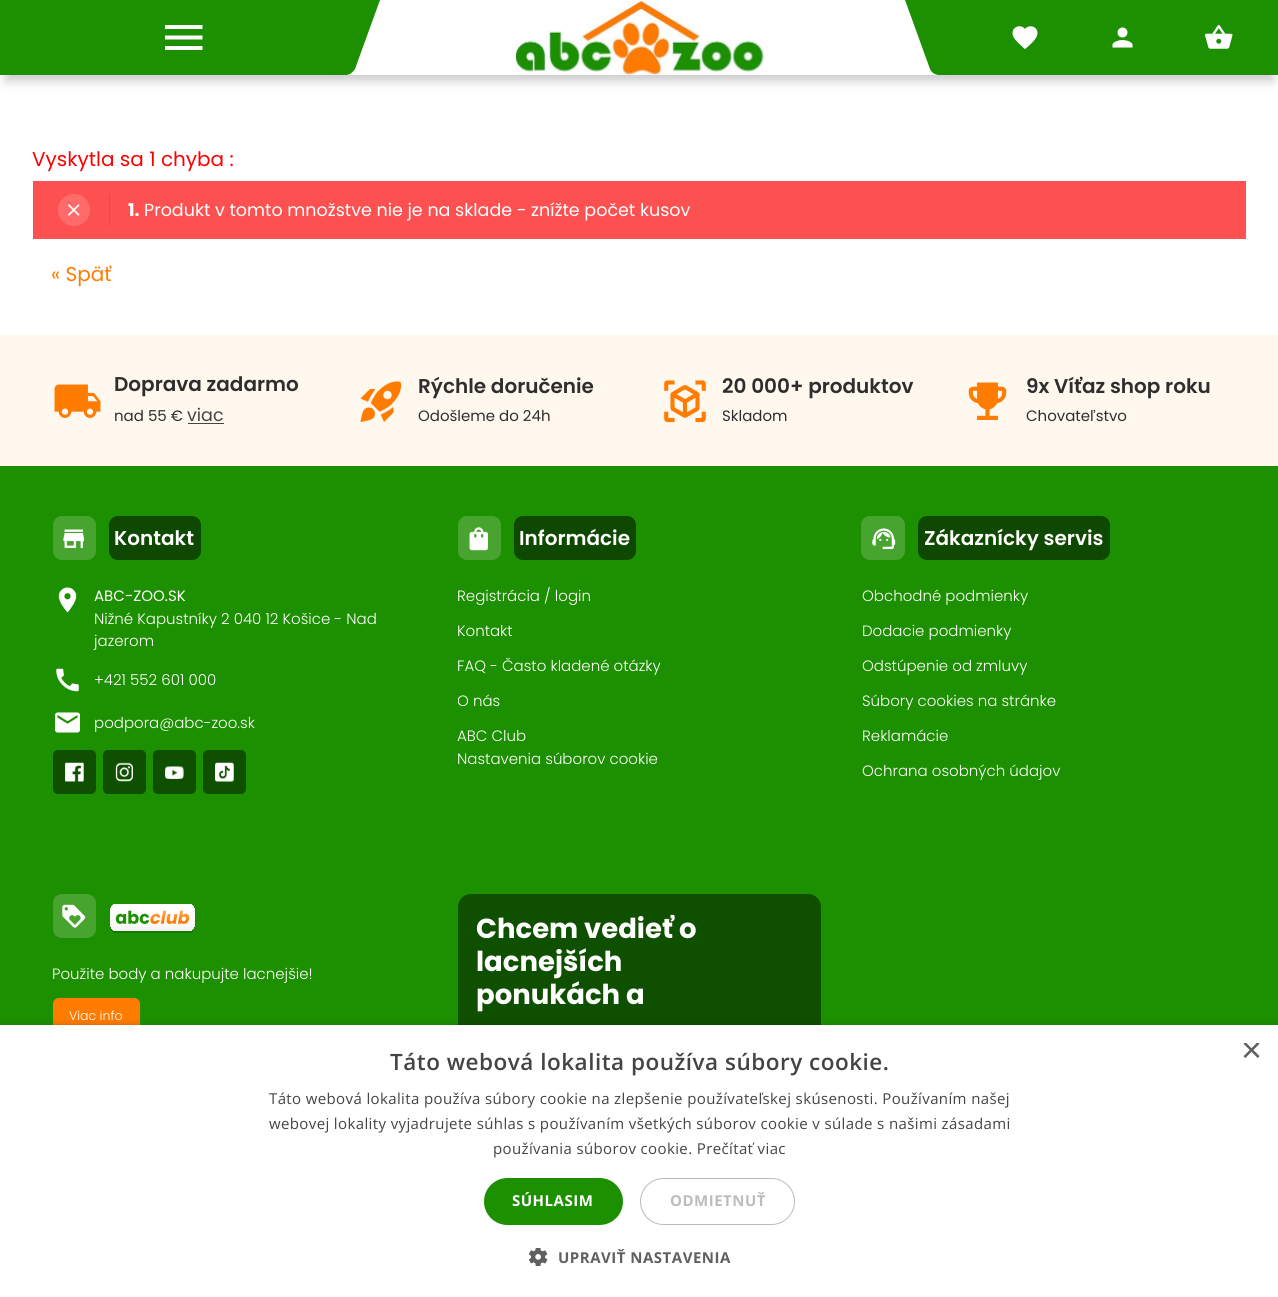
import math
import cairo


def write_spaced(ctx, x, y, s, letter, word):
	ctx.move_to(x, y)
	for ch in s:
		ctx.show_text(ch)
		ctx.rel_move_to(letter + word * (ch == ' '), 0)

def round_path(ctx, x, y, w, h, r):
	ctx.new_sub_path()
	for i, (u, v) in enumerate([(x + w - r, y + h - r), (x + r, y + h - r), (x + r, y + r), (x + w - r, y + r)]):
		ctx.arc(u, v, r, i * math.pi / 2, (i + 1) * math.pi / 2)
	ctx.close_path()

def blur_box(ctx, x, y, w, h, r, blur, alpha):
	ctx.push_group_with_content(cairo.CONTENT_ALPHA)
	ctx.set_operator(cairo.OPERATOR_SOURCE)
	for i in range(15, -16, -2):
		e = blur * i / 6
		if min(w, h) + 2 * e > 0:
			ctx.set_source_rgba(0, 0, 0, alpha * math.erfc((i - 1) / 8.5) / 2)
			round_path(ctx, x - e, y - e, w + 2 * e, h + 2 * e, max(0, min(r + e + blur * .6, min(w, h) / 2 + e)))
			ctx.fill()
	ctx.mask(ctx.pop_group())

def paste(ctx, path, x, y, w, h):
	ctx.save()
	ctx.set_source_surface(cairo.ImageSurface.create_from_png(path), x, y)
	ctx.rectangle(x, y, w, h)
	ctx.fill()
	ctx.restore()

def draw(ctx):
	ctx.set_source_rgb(1, 1, 1)
	ctx.paint()
	ctx.set_source_rgb(0, 0, 0)
	blur_box(ctx, 6, 19, 1267, 62, 0, 5.5, 0.21)
	ctx.set_source_rgb(0.114, 0.565, 0.004)
	ctx.rectangle(0, 0, 1278, 75)
	ctx.fill()
	ctx.set_source_rgb(1, 1, 1)
	ctx.new_path()
	ctx.move_to(165, 25)
	ctx.line_to(202.5, 25)
	ctx.line_to(202.5, 29)
	ctx.line_to(165, 29)
	ctx.close_path()
	ctx.move_to(165, 39.5)
	ctx.line_to(165, 35.5)
	ctx.line_to(202.5, 35.5)
	ctx.line_to(202.5, 39.5)
	ctx.close_path()
	ctx.move_to(165, 50)
	ctx.line_to(165, 46)
	ctx.line_to(202.5, 46)
	ctx.line_to(202.5, 50)
	ctx.close_path()
	ctx.fill()
	ctx.rectangle(346, 0, 593, 75)
	ctx.fill()
	ctx.set_source_rgb(0.114, 0.565, 0.004)
	ctx.new_path()
	ctx.move_to(336, 0)
	ctx.line_to(380, 0)
	ctx.line_to(355, 69)
	ctx.curve_to(353, 72, 350, 75, 346, 75)
	ctx.line_to(309, 75)
	ctx.close_path()
	ctx.fill()
	paste(ctx, 'media/1.png', 515, 0, 249, 75)
	ctx.new_path()
	ctx.move_to(905, 0)
	ctx.line_to(949, 0)
	ctx.line_to(976, 75)
	ctx.line_to(939, 75)
	ctx.curve_to(935, 75, 931, 72, 930, 69)
	ctx.close_path()
	ctx.fill()
	paste(ctx, 'media/2.png', 1012, 26, 26, 23)
	paste(ctx, 'media/3.png', 1112, 27, 21, 21)
	paste(ctx, 'media/4.png', 1205, 25, 28, 24)
	ctx.select_font_face('Poppins')
	ctx.set_font_size(20)
	ctx.set_source_rgb(0.992, 0, 0.008)
	ctx.move_to(32, 166)
	ctx.show_text('Vyskytla sa 1 chyba :')
	ctx.set_source_rgb(0.992, 0.318, 0.318)
	ctx.rectangle(33, 181, 1213, 58)
	ctx.fill()
	ctx.set_source_rgb(0.894, 0.286, 0.286)
	ctx.rectangle(109, 194, 1, 32)
	ctx.fill()
	ctx.set_source_rgb(1, 0.42, 0.42)
	ctx.arc(74, 210, 16, 0, 2 * math.pi)
	ctx.fill()
	paste(ctx, 'media/5.png', 68, 204, 12, 12)
	ctx.select_font_face('Poppins', cairo.FONT_SLANT_NORMAL, cairo.FONT_WEIGHT_BOLD)
	ctx.set_font_size(17.5)
	ctx.set_source_rgb(1, 1, 1)
	ctx.move_to(128, 216)
	ctx.show_text('1.')
	ctx.select_font_face('Poppins')
	ctx.move_to(144, 216)
	ctx.show_text('Produkt v tomto množstve nie je na sklade - znížte počet kusov')
	ctx.set_font_size(20)
	ctx.set_source_rgb(1, 0.486, 0)
	ctx.move_to(51, 281)
	ctx.show_text('« Späť')
	ctx.set_source_rgb(1, 0.969, 0.937)
	ctx.rectangle(0, 335, 1278, 131)
	ctx.fill()
	paste(ctx, 'media/6.png', 54, 384, 47, 34)
	ctx.select_font_face('Poppins SemiBold')
	ctx.set_source_rgb(0.18, 0.18, 0.18)
	ctx.move_to(114, 391)
	ctx.show_text('Doprava zadarmo')
	ctx.select_font_face('Poppins')
	ctx.set_font_size(15)
	ctx.move_to(114, 421)
	ctx.show_text('nad 55 €')
	ctx.set_font_size(17.5)
	ctx.set_source_rgb(0.267, 0.267, 0.267)
	ctx.move_to(187, 421)
	ctx.show_text('viac')
	ctx.rectangle(188, 423, 36, 1)
	ctx.fill()
	paste(ctx, 'media/7.png', 360, 381, 42, 41)
	ctx.select_font_face('Poppins SemiBold')
	ctx.set_font_size(20)
	ctx.set_source_rgb(0.18, 0.18, 0.18)
	ctx.move_to(418, 393)
	ctx.show_text('Rýchle doručenie')
	ctx.select_font_face('Poppins')
	ctx.set_font_size(15)
	ctx.move_to(418, 421)
	ctx.show_text('Odošleme do 24h')
	paste(ctx, 'media/8.png', 664, 380, 42, 43)
	ctx.select_font_face('Poppins SemiBold')
	ctx.set_font_size(20)
	ctx.move_to(722, 393)
	ctx.show_text('20 000+ produktov')
	ctx.select_font_face('Poppins')
	ctx.set_font_size(15)
	ctx.move_to(722, 421)
	ctx.show_text('Skladom')
	paste(ctx, 'media/9.png', 968, 382, 39, 38)
	ctx.select_font_face('Poppins SemiBold')
	ctx.set_font_size(20)
	ctx.move_to(1026, 393)
	ctx.show_text('9x Víťaz shop roku')
	ctx.select_font_face('Poppins')
	ctx.set_font_size(15)
	ctx.move_to(1026, 421)
	ctx.show_text('Chovateľstvo')
	ctx.set_source_rgb(0.114, 0.565, 0.004)
	ctx.rectangle(0, 466, 1278, 559)
	ctx.fill()
	ctx.set_source_rgb(0.275, 0.643, 0.184)
	round_path(ctx, 53, 516, 43, 44, 9)
	ctx.fill()
	paste(ctx, 'media/10.png', 63, 529, 22, 19)
	ctx.set_source_rgb(0.059, 0.282, 0)
	round_path(ctx, 109, 516, 92, 44, 9)
	ctx.fill()
	ctx.select_font_face('Poppins SemiBold')
	ctx.set_font_size(20)
	ctx.set_source_rgb(1, 1, 1)
	ctx.move_to(114, 545)
	ctx.show_text('Kontakt')
	paste(ctx, 'media/11.png', 58, 587, 19, 26)
	ctx.select_font_face('Poppins')
	ctx.set_font_size(15)
	ctx.move_to(94, 601)
	ctx.show_text('ABC-ZOO.SK')
	ctx.select_font_face('Poppins Light')
	ctx.move_to(94, 624)
	ctx.show_text('Nižné Kapustníky 2 040 12 Košice - Nad')
	ctx.move_to(94, 646)
	ctx.show_text('jazerom')
	paste(ctx, 'media/12.png', 56, 668, 23, 24)
	ctx.move_to(94, 685)
	ctx.show_text('+421 552 601 000')
	paste(ctx, 'media/13.png', 55, 712, 25, 21)
	ctx.move_to(94, 728)
	ctx.show_text('podpora@abc-zoo.sk')
	ctx.set_source_rgb(0.059, 0.31, 0)
	round_path(ctx, 53, 750, 43, 44, 5)
	ctx.fill()
	paste(ctx, 'media/14.png', 65, 762, 19, 20)
	round_path(ctx, 103, 750, 43, 44, 5)
	ctx.fill()
	paste(ctx, 'media/15.png', 115, 762, 18, 20)
	round_path(ctx, 153, 750, 43, 44, 5)
	ctx.fill()
	paste(ctx, 'media/16.png', 165, 766, 19, 13)
	round_path(ctx, 203, 750, 43, 44, 5)
	ctx.fill()
	paste(ctx, 'media/17.png', 215, 762, 19, 20)
	ctx.set_source_rgb(0.275, 0.643, 0.184)
	round_path(ctx, 458, 516, 43, 44, 9)
	ctx.fill()
	paste(ctx, 'media/18.png', 469, 527, 19, 24)
	ctx.set_source_rgb(0.059, 0.282, 0)
	round_path(ctx, 514, 516, 122, 44, 9)
	ctx.fill()
	ctx.select_font_face('Poppins SemiBold')
	ctx.set_font_size(20)
	ctx.set_source_rgb(1, 1, 1)
	ctx.move_to(519, 545)
	ctx.show_text('Informácie')
	ctx.select_font_face('Poppins Light')
	ctx.set_font_size(15)
	for x, y, s in [
		(457, 601, 'Registrácia / login'),
		(457, 636, 'Kontakt'),
		(457, 671, 'FAQ - Často kladené otázky'),
	]:
		ctx.move_to(x, y)
		ctx.show_text(s)
	ctx.save()
	ctx.rectangle(458, 516, 363, 278)
	ctx.clip()
	ctx.move_to(457, 706)
	ctx.show_text('O nás')
	ctx.restore()
	ctx.move_to(457, 741)
	ctx.show_text('ABC Club')
	ctx.move_to(457, 764)
	ctx.show_text('Nastavenia súborov cookie')
	ctx.set_source_rgb(0.275, 0.643, 0.184)
	round_path(ctx, 861, 516, 44, 44, 9)
	ctx.fill()
	paste(ctx, 'media/19.png', 872, 528, 24, 22)
	ctx.set_source_rgb(0.059, 0.282, 0)
	round_path(ctx, 918, 516, 192, 44, 9)
	ctx.fill()
	ctx.select_font_face('Poppins SemiBold')
	ctx.set_font_size(20)
	ctx.set_source_rgb(1, 1, 1)
	ctx.move_to(924, 545)
	ctx.show_text('Zákaznícky servis')
	ctx.select_font_face('Poppins Light')
	ctx.set_font_size(15)
	for x, y, s in [
		(862, 601, 'Obchodné podmienky'),
		(862, 636, 'Dodacie podmienky'),
		(862, 671, 'Odstúpenie od zmluvy'),
		(862, 706, 'Súbory cookies na stránke'),
		(862, 741, 'Reklamácie'),
		(862, 776, 'Ochrana osobných údajov'),
	]:
		ctx.move_to(x, y)
		ctx.show_text(s)
	ctx.set_source_rgb(0.275, 0.643, 0.184)
	round_path(ctx, 53, 894, 43, 44, 9)
	ctx.fill()
	paste(ctx, 'media/20.png', 62, 904, 24, 24)
	paste(ctx, 'media/21.png', 110, 904, 85, 29)
	ctx.set_source_rgb(1, 1, 1)
	ctx.move_to(52, 979)
	ctx.show_text('Použite body a nakupujte lacnejšie!')
	ctx.set_source_rgb(1, 0.486, 0)
	round_path(ctx, 53, 998, 87, 37, 6)
	ctx.fill()
	ctx.set_font_size(12.5)
	ctx.set_source_rgb(1, 1, 1)
	ctx.move_to(69, 1020)
	ctx.show_text('Viac info')
	ctx.set_source_rgb(0.059, 0.31, 0)
	round_path(ctx, 458, 894, 363, 295, 13)
	ctx.fill()
	ctx.select_font_face('Poppins', cairo.FONT_SLANT_NORMAL, cairo.FONT_WEIGHT_BOLD)
	ctx.set_font_size(27.5)
	ctx.set_source_rgb(1, 1, 1)
	for x, y, s in [
		(476, 938, 'Chcem vedieť o'),
		(476, 971, 'lacnejších'),
		(476, 1004, 'ponukách a'),
	]:
		ctx.move_to(x, y)
		ctx.show_text(s)
	ctx.set_source_rgb(0, 0, 0)
	blur_box(ctx, 1, 1028, 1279, 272, 0, 5, 0.35)
	ctx.set_source_rgb(1, 1, 1)
	ctx.rectangle(0, 1025, 1278, 272)
	ctx.fill()
	ctx.save()
	ctx.rectangle(1241, 1043, 19, 18)
	ctx.clip()
	ctx.select_font_face('Liberation Sans')
	ctx.set_font_size(36)
	ctx.set_source_rgb(0.376, 0.376, 0.376)
	ctx.move_to(1241, 1062)
	ctx.show_text('×')
	ctx.restore()
	ctx.select_font_face('Open Sans SemiBold')
	ctx.set_font_size(22.5)
	ctx.set_source_rgb(0.267, 0.267, 0.267)
	write_spaced(ctx, 390, 1070, 'Táto webová lokalita používa súbory cookie.', 0.5, 0)
	ctx.select_font_face('Open Sans')
	ctx.set_font_size(15)
	for x, y, s in [
		(269, 1104, 'Táto webová lokalita používa súbory cookie na zlepšenie používateľskej skúsenosti. Používaním našej'),
		(269, 1129, 'webovej lokality vyjadrujete súhlas s používaním všetkých súborov cookie v súlade s našimi zásadami'),
		(493, 1154, 'používania súborov cookie. Prečítať viac'),
	]:
		write_spaced(ctx, x, y, s, 0.38, 0)
	ctx.set_source_rgb(0.114, 0.565, 0.004)
	round_path(ctx, 484, 1178, 139, 47, 23.5)
	ctx.fill()
	ctx.select_font_face('Open Sans', cairo.FONT_SLANT_NORMAL, cairo.FONT_WEIGHT_BOLD)
	ctx.set_source_rgb(1, 1, 1)
	write_spaced(ctx, 512, 1206, 'SÚHLASIM', 0.5, 0)
	round_path(ctx, 640.5, 1178.5, 154, 46, 23)
	ctx.set_source_rgb(0.737, 0.737, 0.737)
	ctx.set_line_width(1)
	ctx.stroke()
	write_spaced(ctx, 670, 1206, 'ODMIETNUŤ', 0.5, 0)
	paste(ctx, 'media/22.png', 529, 1248, 19, 18)
	ctx.set_source_rgb(0.376, 0.376, 0.376)
	write_spaced(ctx, 558, 1263, 'UPRAVIŤ NASTAVENIA', 0.5, 0)


surface = cairo.ImageSurface(cairo.FORMAT_RGB24, 1278, 1297)
ctx = cairo.Context(surface)
options = cairo.FontOptions()
options.set_hint_metrics(cairo.HINT_METRICS_OFF)
options.set_hint_style(cairo.HINT_STYLE_NONE)
ctx.set_font_options(options)
ctx.set_miter_limit(4)
draw(ctx)
surface.write_to_png('image.png')
